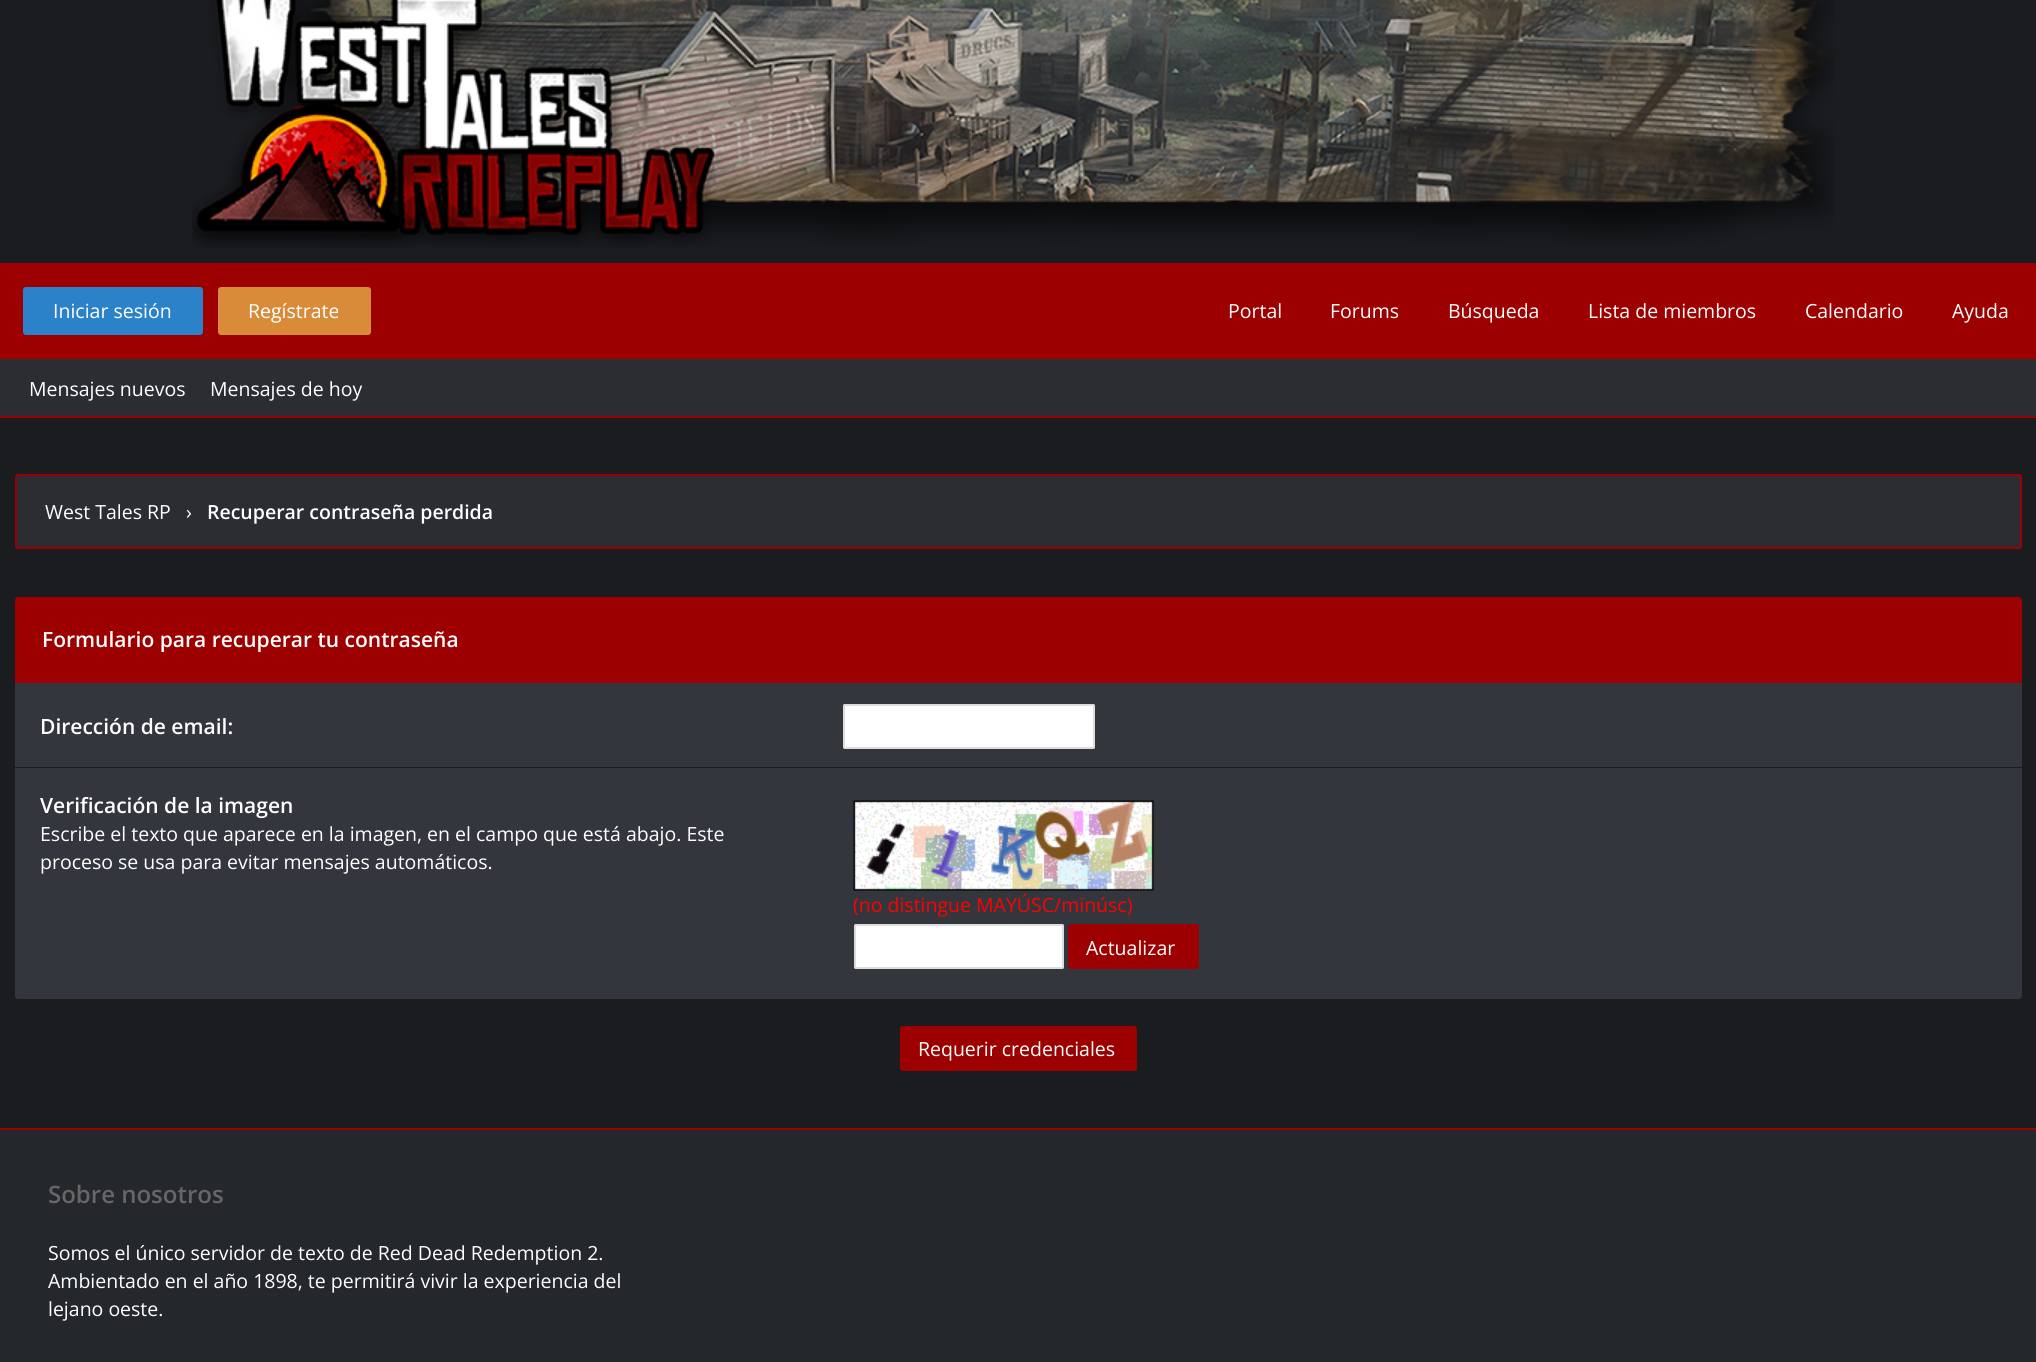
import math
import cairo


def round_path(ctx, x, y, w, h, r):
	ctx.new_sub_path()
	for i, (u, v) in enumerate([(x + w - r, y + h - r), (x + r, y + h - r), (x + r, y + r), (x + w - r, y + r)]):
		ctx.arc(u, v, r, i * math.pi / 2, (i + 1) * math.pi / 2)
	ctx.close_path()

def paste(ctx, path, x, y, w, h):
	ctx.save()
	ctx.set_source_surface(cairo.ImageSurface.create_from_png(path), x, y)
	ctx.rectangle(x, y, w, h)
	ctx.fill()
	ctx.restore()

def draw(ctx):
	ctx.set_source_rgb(0.102, 0.11, 0.125)
	ctx.paint()
	paste(ctx, 'media/1.png', 192, 0, 1643, 248)
	ctx.set_source_rgb(0.616, 0, 0)
	ctx.rectangle(0, 263, 2036, 96)
	ctx.fill()
	ctx.set_source_rgb(0.173, 0.51, 0.788)
	round_path(ctx, 23, 287, 180, 48, 3)
	ctx.fill()
	ctx.select_font_face('Open Sans')
	ctx.set_font_size(19.5)
	ctx.set_source_rgb(1, 1, 1)
	ctx.move_to(53, 318)
	ctx.show_text('Iniciar sesión')
	ctx.set_source_rgb(0.851, 0.545, 0.227)
	round_path(ctx, 218, 287, 153, 48, 3)
	ctx.fill()
	ctx.set_source_rgb(1, 1, 1)
	for x, y, s in [
		(248, 318, 'Regístrate'),
		(1228, 318, 'Portal'),
		(1330, 318, 'Forums'),
		(1448, 318, 'Búsqueda'),
		(1588, 318, 'Lista de miembros'),
		(1805, 318, 'Calendario'),
		(1952, 318, 'Ayuda'),
	]:
		ctx.move_to(x, y)
		ctx.show_text(s)
	ctx.set_source_rgb(0.169, 0.176, 0.2)
	ctx.rectangle(0, 359, 2036, 57)
	ctx.fill()
	ctx.set_source_rgb(0.616, 0, 0)
	ctx.rectangle(0, 416, 2036, 2)
	ctx.fill()
	ctx.set_source_rgb(1, 1, 1)
	ctx.move_to(29, 396)
	ctx.show_text('Mensajes nuevos')
	ctx.move_to(210, 396)
	ctx.show_text('Mensajes de hoy')
	ctx.set_source_rgb(0.169, 0.176, 0.2)
	round_path(ctx, 16, 475, 2005, 73, 2)
	ctx.fill_preserve()
	ctx.set_source_rgb(0.616, 0, 0)
	ctx.stroke()
	ctx.set_source_rgb(1, 1, 1)
	ctx.move_to(45, 519)
	ctx.show_text('West Tales RP')
	ctx.move_to(186, 519)
	ctx.show_text('›')
	ctx.select_font_face('Open Sans SemiBold')
	ctx.move_to(207, 519)
	ctx.show_text('Recuperar contraseña perdida')
	ctx.set_source_rgb(0.616, 0, 0)
	ctx.new_path()
	ctx.move_to(18, 597)
	ctx.line_to(2019, 597)
	ctx.curve_to(2020.5, 597, 2022, 598.5, 2022, 600)
	ctx.line_to(2022, 683)
	ctx.line_to(15, 683)
	ctx.line_to(15, 600)
	ctx.curve_to(15, 598.5, 16.5, 597, 18, 597)
	ctx.close_path()
	ctx.fill()
	ctx.set_font_size(21)
	ctx.set_source_rgb(1, 1, 1)
	ctx.move_to(42, 647)
	ctx.show_text('Formulario para recuperar tu contraseña')
	ctx.set_source_rgb(0.2, 0.212, 0.239)
	ctx.rectangle(15, 683, 2007, 84)
	ctx.fill()
	ctx.set_source_rgb(1, 1, 1)
	ctx.move_to(40, 734)
	ctx.show_text('Dirección de email:')
	round_path(ctx, 844, 705, 250, 43, 0.5)
	ctx.fill_preserve()
	ctx.set_source_rgb(0.867, 0.867, 0.867)
	ctx.stroke()
	ctx.set_source_rgb(0.2, 0.212, 0.239)
	ctx.new_path()
	ctx.move_to(15, 768)
	ctx.line_to(818, 768)
	ctx.line_to(818, 999)
	ctx.line_to(18, 999)
	ctx.curve_to(16.5, 999, 15, 997.5, 15, 996)
	ctx.close_path()
	ctx.fill()
	ctx.set_source_rgb(1, 1, 1)
	ctx.move_to(40, 813)
	ctx.show_text('Verificación de la imagen')
	ctx.select_font_face('Open Sans')
	ctx.set_font_size(19.5)
	ctx.move_to(40, 841)
	ctx.show_text('Escribe el texto que aparece en la imagen, en el campo que está abajo. Este')
	ctx.move_to(40, 869)
	ctx.show_text('proceso se usa para evitar mensajes automáticos.')
	ctx.set_source_rgb(0.2, 0.212, 0.239)
	ctx.new_path()
	ctx.move_to(818, 768)
	ctx.line_to(2022, 768)
	ctx.line_to(2022, 996)
	ctx.curve_to(2022, 997.5, 2020.5, 999, 2019, 999)
	ctx.line_to(818, 999)
	ctx.close_path()
	ctx.fill()
	paste(ctx, 'media/2.png', 853, 800, 301, 91)
	ctx.set_source_rgb(1, 0, 0)
	ctx.move_to(853, 912)
	ctx.show_text('(no distingue MAYÚSC/minúsc)')
	ctx.set_source_rgb(1, 1, 1)
	round_path(ctx, 855, 925, 208, 43, 0.5)
	ctx.fill_preserve()
	ctx.set_source_rgb(0.867, 0.867, 0.867)
	ctx.stroke()
	ctx.set_source_rgb(0.616, 0, 0)
	round_path(ctx, 1068, 924, 131, 45, 3)
	ctx.fill()
	ctx.set_source_rgb(1, 1, 1)
	ctx.move_to(1086, 955)
	ctx.show_text('Actualizar')
	ctx.set_source_rgb(0.616, 0, 0)
	round_path(ctx, 900, 1026, 237, 45, 3)
	ctx.fill()
	ctx.set_source_rgb(1, 1, 1)
	ctx.move_to(918, 1056)
	ctx.show_text('Requerir credenciales')
	ctx.set_source_rgb(0.141, 0.153, 0.169)
	ctx.rectangle(0, 1130, 2036, 232)
	ctx.fill()
	ctx.set_source_rgb(0.616, 0, 0)
	ctx.rectangle(0, 1128, 2036, 2)
	ctx.fill()
	ctx.select_font_face('Open Sans SemiBold')
	ctx.set_font_size(24)
	ctx.set_source_rgb(0.4, 0.4, 0.4)
	ctx.move_to(48, 1203)
	ctx.show_text('Sobre nosotros')
	ctx.select_font_face('Open Sans')
	ctx.set_font_size(19.5)
	ctx.set_source_rgb(1, 1, 1)
	for x, y, s in [
		(48, 1260, 'Somos el único servidor de texto de Red Dead Redemption 2.'),
		(48, 1288, 'Ambientado en el año 1898, te permitirá vivir la experiencia del'),
		(48, 1316, 'lejano oeste.'),
	]:
		ctx.move_to(x, y)
		ctx.show_text(s)


surface = cairo.ImageSurface(cairo.FORMAT_RGB24, 2036, 1362)
ctx = cairo.Context(surface)
options = cairo.FontOptions()
options.set_hint_metrics(cairo.HINT_METRICS_OFF)
options.set_hint_style(cairo.HINT_STYLE_NONE)
ctx.set_font_options(options)
ctx.set_miter_limit(4)
draw(ctx)
surface.write_to_png('image.png')
